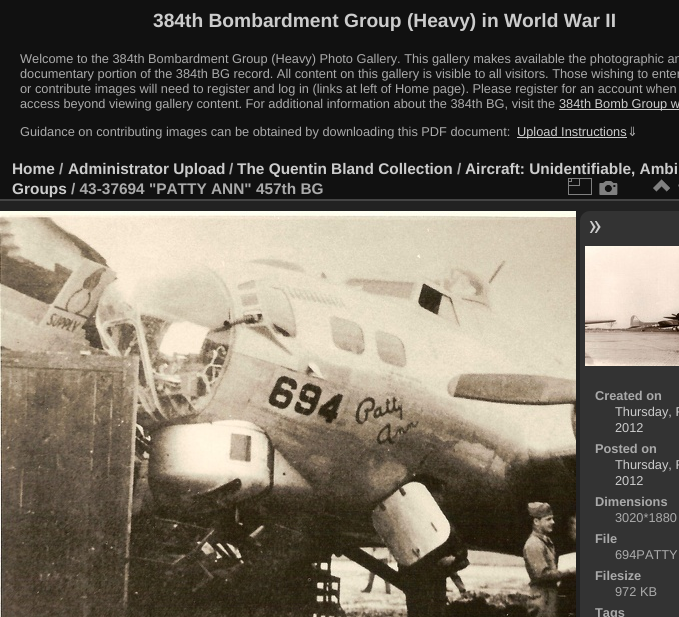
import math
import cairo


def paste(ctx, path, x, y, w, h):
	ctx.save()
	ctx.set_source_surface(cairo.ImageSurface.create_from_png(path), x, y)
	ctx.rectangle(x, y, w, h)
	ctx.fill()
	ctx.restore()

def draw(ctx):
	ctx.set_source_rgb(0.067, 0.067, 0.067)
	ctx.paint()
	ctx.select_font_face('Liberation Sans', cairo.FONT_SLANT_NORMAL, cairo.FONT_WEIGHT_BOLD)
	ctx.set_font_size(19.2)
	ctx.set_source_rgb(0.8, 0.8, 0.8)
	ctx.move_to(153, 27)
	ctx.show_text('384th Bombardment Group (Heavy) in World War II')
	ctx.select_font_face('Liberation Sans')
	ctx.set_font_size(12.8)
	ctx.set_source_rgb(0.667, 0.667, 0.667)
	for x, y, s in [
		(20, 63, 'Welcome to the 384th Bombardment Group (Heavy) Photo Gallery. This gallery makes available the photographic an'),
		(20, 78, 'documentary portion of the 384th BG record. All content on this gallery is visible to all visitors. Those wishing to enter'),
		(20, 93, 'or contribute images will need to register and log in (links at left of Home page). Please register for an account when'),
		(20, 108, 'access beyond viewing gallery content. For additional information about the 384th BG, visit the'),
	]:
		ctx.move_to(x, y)
		ctx.show_text(s)
	ctx.set_source_rgb(0.8, 0.8, 0.8)
	ctx.rectangle(559, 109, 120, 1)
	ctx.fill()
	ctx.move_to(559, 108)
	ctx.show_text('384th Bomb Group w')
	ctx.set_source_rgb(0.667, 0.667, 0.667)
	ctx.move_to(20, 136)
	ctx.show_text('Guidance on contributing images can be obtained by downloading this PDF document:')
	ctx.set_source_rgb(0.8, 0.8, 0.8)
	ctx.rectangle(517, 137, 110, 1)
	ctx.fill()
	ctx.move_to(517, 136)
	ctx.show_text('Upload Instructions')
	ctx.select_font_face('DejaVu Sans')
	ctx.set_source_rgb(0.667, 0.667, 0.667)
	ctx.move_to(627, 136)
	ctx.show_text('⇓')
	ctx.set_source_rgb(0.133, 0.133, 0.133)
	ctx.rectangle(0, 201, 679, 416)
	ctx.fill()
	ctx.set_source_rgb(0.267, 0.267, 0.267)
	ctx.rectangle(0, 199, 679, 2)
	ctx.fill()
	ctx.select_font_face('Liberation Sans', cairo.FONT_SLANT_NORMAL, cairo.FONT_WEIGHT_BOLD)
	ctx.set_font_size(15.4)
	ctx.set_source_rgb(0.8, 0.8, 0.8)
	ctx.move_to(12, 174)
	ctx.show_text('Home')
	ctx.set_source_rgb(0.667, 0.667, 0.667)
	ctx.move_to(59, 174)
	ctx.show_text('/')
	ctx.set_source_rgb(0.8, 0.8, 0.8)
	ctx.move_to(68, 174)
	ctx.show_text('Administrator Upload')
	ctx.set_source_rgb(0.667, 0.667, 0.667)
	ctx.move_to(229, 174)
	ctx.show_text('/')
	ctx.set_source_rgb(0.8, 0.8, 0.8)
	ctx.move_to(237, 174)
	ctx.show_text('The Quentin Bland Collection')
	ctx.set_source_rgb(0.667, 0.667, 0.667)
	ctx.move_to(457, 174)
	ctx.show_text('/')
	ctx.set_source_rgb(0.8, 0.8, 0.8)
	ctx.move_to(465, 174)
	ctx.show_text('Aircraft: Unidentifiable, Ambi')
	ctx.move_to(12, 194)
	ctx.show_text('Groups')
	ctx.set_source_rgb(0.667, 0.667, 0.667)
	ctx.move_to(71, 194)
	ctx.show_text('/ 43-37694 "PATTY ANN" 457th BG')
	paste(ctx, 'media/1.png', 568, 178, 24, 17)
	paste(ctx, 'media/2.png', 599, 181, 19, 14)
	paste(ctx, 'media/3.png', 653, 179, 17, 13)
	paste(ctx, 'media/4.png', 678, 184, 1, 3)
	paste(ctx, 'media/5.png', 0, 211, 576, 406)
	ctx.set_source_rgb(0.2, 0.2, 0.2)
	ctx.new_path()
	ctx.move_to(590, 211)
	ctx.line_to(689, 211)
	ctx.line_to(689, 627)
	ctx.line_to(590, 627)
	ctx.curve_to(584.5, 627, 580, 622.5, 580, 617)
	ctx.line_to(580, 221)
	ctx.curve_to(580, 215.5, 584.5, 211, 590, 211)
	ctx.close_path()
	ctx.fill()
	paste(ctx, 'media/6.png', 589, 221, 12, 12)
	paste(ctx, 'media/7.png', 585, 246, 94, 120)
	ctx.set_font_size(12.8)
	ctx.set_source_rgb(0.667, 0.667, 0.667)
	ctx.move_to(595, 400)
	ctx.show_text('Created on')
	ctx.select_font_face('Liberation Sans')
	ctx.set_source_rgb(0.8, 0.8, 0.8)
	ctx.move_to(615, 416)
	ctx.show_text('Thursday, F')
	ctx.move_to(615, 432)
	ctx.show_text('2012')
	ctx.select_font_face('Liberation Sans', cairo.FONT_SLANT_NORMAL, cairo.FONT_WEIGHT_BOLD)
	ctx.set_source_rgb(0.667, 0.667, 0.667)
	ctx.move_to(595, 453)
	ctx.show_text('Posted on')
	ctx.select_font_face('Liberation Sans')
	ctx.set_source_rgb(0.8, 0.8, 0.8)
	ctx.move_to(615, 469)
	ctx.show_text('Thursday, F')
	ctx.move_to(615, 485)
	ctx.show_text('2012')
	ctx.select_font_face('Liberation Sans', cairo.FONT_SLANT_NORMAL, cairo.FONT_WEIGHT_BOLD)
	ctx.set_source_rgb(0.667, 0.667, 0.667)
	ctx.move_to(595, 506)
	ctx.show_text('Dimensions')
	ctx.select_font_face('Liberation Sans')
	ctx.move_to(615, 522)
	ctx.show_text('3020*1880')
	ctx.select_font_face('Liberation Sans', cairo.FONT_SLANT_NORMAL, cairo.FONT_WEIGHT_BOLD)
	ctx.move_to(595, 543)
	ctx.show_text('File')
	ctx.select_font_face('Liberation Sans')
	ctx.move_to(615, 559)
	ctx.show_text('694PATTY')
	ctx.select_font_face('Liberation Sans', cairo.FONT_SLANT_NORMAL, cairo.FONT_WEIGHT_BOLD)
	ctx.move_to(595, 580)
	ctx.show_text('Filesize')
	ctx.select_font_face('Liberation Sans')
	ctx.move_to(615, 596)
	ctx.show_text('972 KB')
	ctx.select_font_face('Liberation Sans', cairo.FONT_SLANT_NORMAL, cairo.FONT_WEIGHT_BOLD)
	ctx.move_to(595, 617)
	ctx.show_text('Tags')


surface = cairo.ImageSurface(cairo.FORMAT_RGB24, 679, 617)
ctx = cairo.Context(surface)
options = cairo.FontOptions()
options.set_hint_metrics(cairo.HINT_METRICS_OFF)
options.set_hint_style(cairo.HINT_STYLE_NONE)
ctx.set_font_options(options)
ctx.set_miter_limit(4)
draw(ctx)
surface.write_to_png('image.png')
